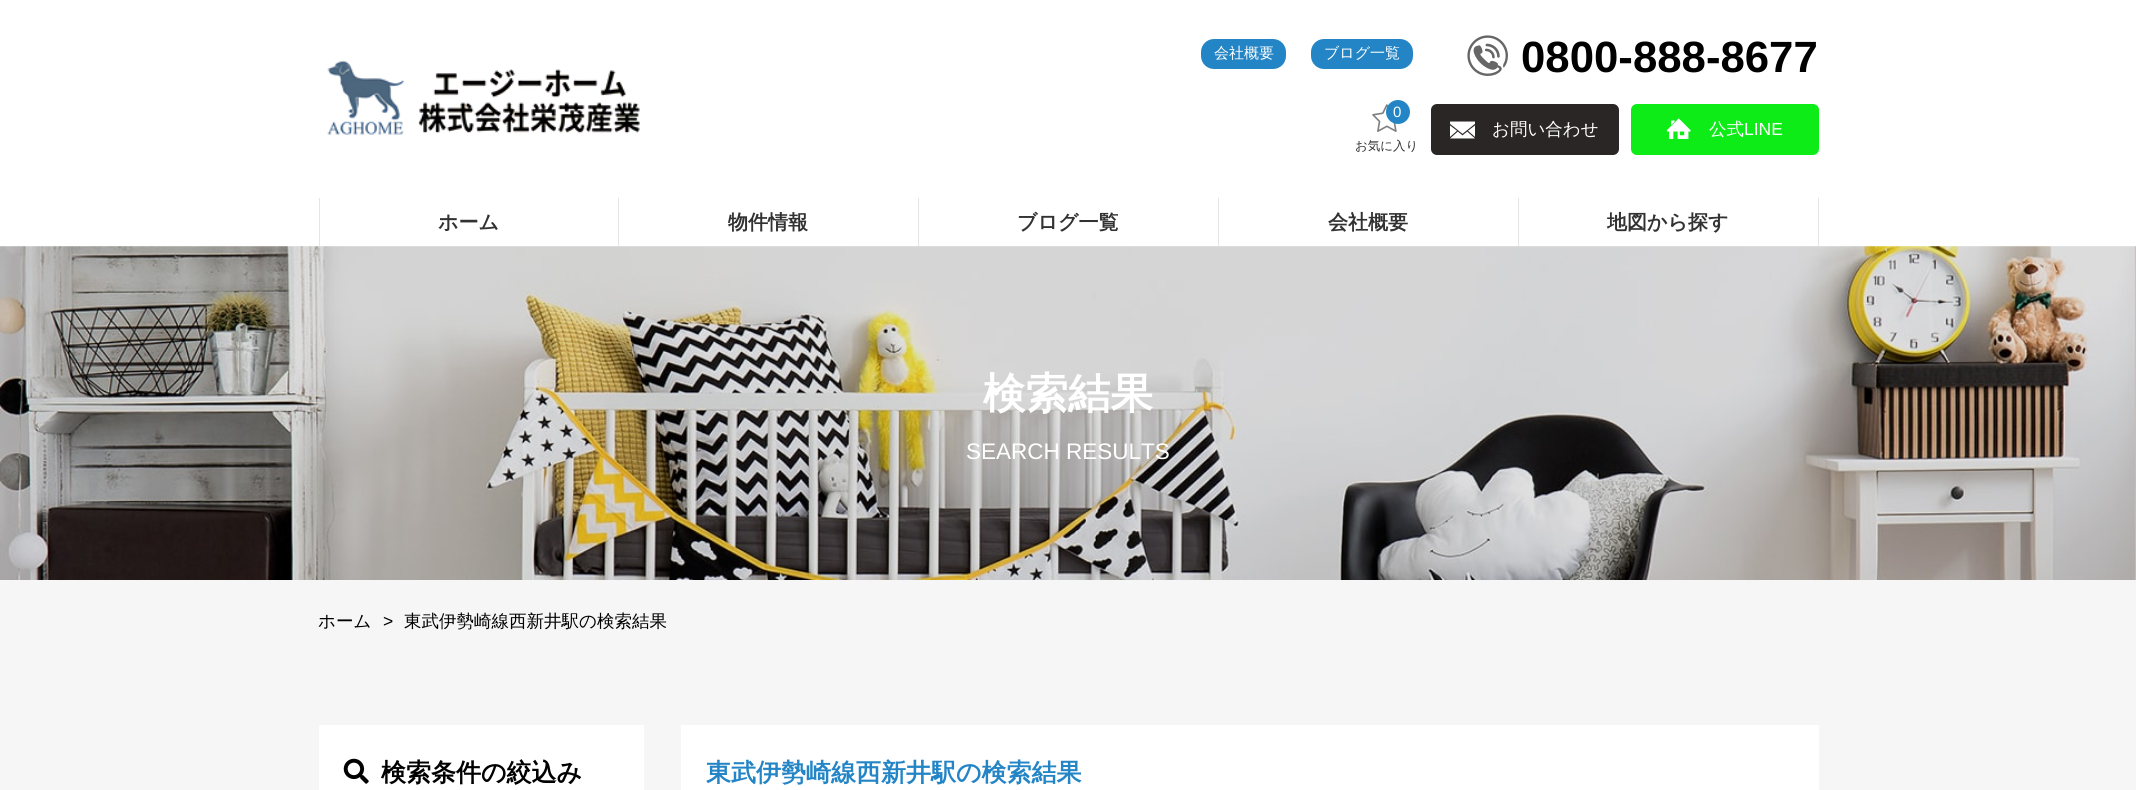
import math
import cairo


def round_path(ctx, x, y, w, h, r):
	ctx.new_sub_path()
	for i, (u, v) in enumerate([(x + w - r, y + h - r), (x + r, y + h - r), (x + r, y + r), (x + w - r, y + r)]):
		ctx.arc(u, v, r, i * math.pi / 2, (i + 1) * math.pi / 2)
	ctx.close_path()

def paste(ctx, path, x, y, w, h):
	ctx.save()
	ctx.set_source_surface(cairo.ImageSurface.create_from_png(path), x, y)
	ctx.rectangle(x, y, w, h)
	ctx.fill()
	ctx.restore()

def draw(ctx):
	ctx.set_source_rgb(1, 1, 1)
	ctx.paint()
	paste(ctx, 'media/1.png', 327, 60, 313, 75)
	ctx.set_source_rgb(0.137, 0.522, 0.773)
	round_path(ctx, 1201, 39, 85, 30, 13)
	ctx.fill()
	ctx.select_font_face('WenQuanYi Zen Hei Medium')
	ctx.set_font_size(15)
	ctx.set_source_rgb(1, 1, 1)
	ctx.move_to(1214, 58)
	ctx.show_text('会社概要')
	ctx.set_source_rgb(0.137, 0.522, 0.773)
	round_path(ctx, 1311, 39, 102, 30, 13)
	ctx.fill()
	ctx.set_source_rgb(1, 1, 1)
	ctx.move_to(1324, 58)
	ctx.show_text('ブログ一覧')
	paste(ctx, 'media/2.png', 1467, 35, 41, 41)
	ctx.select_font_face('Liberation Sans', cairo.FONT_SLANT_NORMAL, cairo.FONT_WEIGHT_BOLD)
	ctx.set_font_size(43.75)
	ctx.set_source_rgb(0, 0, 0)
	ctx.move_to(1521, 72)
	ctx.show_text('0800-888-8677')
	paste(ctx, 'media/3.png', 1372, 104, 25, 28)
	ctx.set_source_rgb(0.137, 0.522, 0.773)
	ctx.arc(1398, 112, 12, 0, 2 * math.pi)
	ctx.fill()
	ctx.select_font_face('Liberation Sans')
	ctx.set_font_size(15)
	ctx.set_source_rgb(1, 1, 1)
	ctx.move_to(1393, 117)
	ctx.show_text('0')
	ctx.select_font_face('WenQuanYi Zen Hei Medium')
	ctx.set_font_size(12.5)
	ctx.set_source_rgb(0.196, 0.196, 0.196)
	ctx.move_to(1355, 150)
	ctx.show_text('お気に入り')
	ctx.set_source_rgb(0.169, 0.149, 0.149)
	round_path(ctx, 1431, 104, 188, 51, 6)
	ctx.fill()
	paste(ctx, 'media/4.png', 1450, 121, 25, 18)
	ctx.set_font_size(17.5)
	ctx.set_source_rgb(1, 1, 1)
	ctx.move_to(1492, 135)
	ctx.show_text('お問い合わせ')
	ctx.set_source_rgb(0.055, 0.922, 0.09)
	round_path(ctx, 1631, 104, 188, 51, 6)
	ctx.fill()
	paste(ctx, 'media/5.png', 1666, 118, 25, 21)
	ctx.set_source_rgb(1, 1, 1)
	ctx.move_to(1709, 135)
	ctx.show_text('公式')
	ctx.select_font_face('Liberation Sans')
	ctx.move_to(1744, 135)
	ctx.show_text('LINE')
	ctx.set_source_rgb(0.898, 0.898, 0.898)
	ctx.rectangle(1818, 198, 1, 48)
	ctx.fill()
	ctx.rectangle(319, 198, 1, 48)
	ctx.fill()
	ctx.select_font_face('WenQuanYi Zen Hei', cairo.FONT_SLANT_NORMAL, cairo.FONT_WEIGHT_BOLD)
	ctx.set_font_size(20)
	ctx.set_source_rgb(0.196, 0.196, 0.196)
	ctx.move_to(438, 229)
	ctx.show_text('ホーム')
	ctx.set_source_rgb(0.898, 0.898, 0.898)
	ctx.rectangle(618, 198, 1, 48)
	ctx.fill()
	ctx.set_source_rgb(0.196, 0.196, 0.196)
	ctx.move_to(728, 229)
	ctx.show_text('物件情報')
	ctx.set_source_rgb(0.898, 0.898, 0.898)
	ctx.rectangle(918, 198, 1, 48)
	ctx.fill()
	ctx.set_source_rgb(0.196, 0.196, 0.196)
	ctx.move_to(1017, 229)
	ctx.show_text('ブログ一覧')
	ctx.set_source_rgb(0.898, 0.898, 0.898)
	ctx.rectangle(1218, 198, 1, 48)
	ctx.fill()
	ctx.set_source_rgb(0.196, 0.196, 0.196)
	ctx.move_to(1328, 229)
	ctx.show_text('会社概要')
	ctx.set_source_rgb(0.898, 0.898, 0.898)
	ctx.rectangle(1518, 198, 1, 48)
	ctx.fill()
	ctx.set_source_rgb(0.196, 0.196, 0.196)
	ctx.move_to(1607, 229)
	ctx.show_text('地図から探す')
	ctx.set_source_rgb(0.961, 0.961, 0.961)
	ctx.rectangle(0, 246, 2136, 544)
	ctx.fill()
	paste(ctx, 'media/6.png', 0, 246, 2136, 334)
	ctx.set_font_size(42.5)
	ctx.set_source_rgb(1, 1, 1)
	ctx.move_to(983, 408)
	ctx.show_text('検索結果')
	ctx.select_font_face('Liberation Sans')
	ctx.set_font_size(22.5)
	ctx.move_to(966, 459)
	ctx.show_text('SEARCH RESULTS')
	ctx.select_font_face('WenQuanYi Zen Hei Medium')
	ctx.set_font_size(17.5)
	ctx.set_source_rgb(0, 0, 0)
	ctx.move_to(318, 627)
	ctx.show_text('ホーム')
	ctx.select_font_face('Liberation Sans')
	ctx.move_to(383, 627)
	ctx.show_text('>')
	ctx.select_font_face('WenQuanYi Zen Hei Medium')
	ctx.move_to(404, 627)
	ctx.show_text('東武伊勢崎線西新井駅の検索結果')
	ctx.set_source_rgb(1, 1, 1)
	ctx.rectangle(319, 725, 325, 65)
	ctx.fill()
	paste(ctx, 'media/7.png', 343, 758, 26, 26)
	ctx.select_font_face('WenQuanYi Zen Hei', cairo.FONT_SLANT_NORMAL, cairo.FONT_WEIGHT_BOLD)
	ctx.set_font_size(25)
	ctx.set_source_rgb(0, 0, 0)
	ctx.move_to(381, 781)
	ctx.show_text('検索条件の絞込み')
	ctx.set_source_rgb(1, 1, 1)
	ctx.rectangle(681, 725, 1138, 65)
	ctx.fill()
	ctx.set_source_rgb(0.137, 0.522, 0.773)
	ctx.move_to(706, 781)
	ctx.show_text('東武伊勢崎線西新井駅の検索結果')


surface = cairo.ImageSurface(cairo.FORMAT_RGB24, 2136, 790)
ctx = cairo.Context(surface)
options = cairo.FontOptions()
options.set_hint_metrics(cairo.HINT_METRICS_OFF)
options.set_hint_style(cairo.HINT_STYLE_NONE)
ctx.set_font_options(options)
ctx.set_miter_limit(4)
draw(ctx)
surface.write_to_png('image.png')
